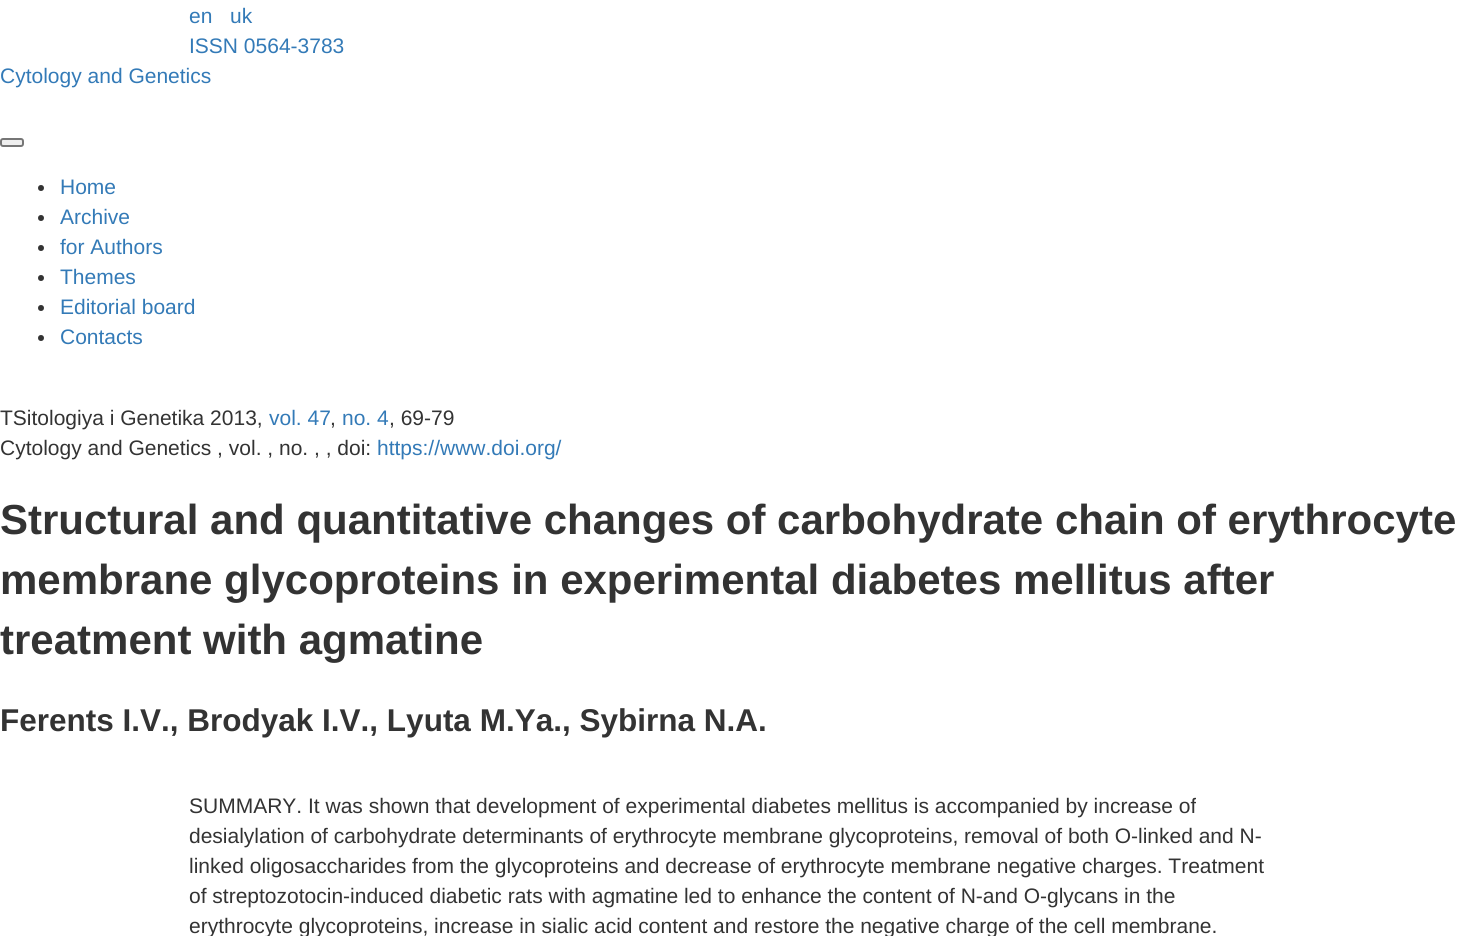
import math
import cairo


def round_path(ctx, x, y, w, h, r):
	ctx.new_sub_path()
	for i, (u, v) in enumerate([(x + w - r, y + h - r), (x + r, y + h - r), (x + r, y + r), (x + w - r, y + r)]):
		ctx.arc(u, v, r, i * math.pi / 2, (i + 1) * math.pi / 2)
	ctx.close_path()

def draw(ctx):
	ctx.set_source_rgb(1, 1, 1)
	ctx.paint()
	ctx.select_font_face('Liberation Sans')
	ctx.set_font_size(21)
	ctx.set_source_rgb(0.2, 0.478, 0.718)
	for x, y, s in [
		(189, 23, 'en'),
		(230, 23, 'uk'),
		(189, 53, 'ISSN 0564-3783'),
		(0, 83, 'Cytology and Genetics'),
	]:
		ctx.move_to(x, y)
		ctx.show_text(s)
	ctx.set_source_rgb(0.937, 0.937, 0.937)
	round_path(ctx, 1, 139, 22, 7, 2)
	ctx.fill_preserve()
	ctx.set_source_rgb(0.463, 0.463, 0.463)
	ctx.stroke()
	ctx.set_source_rgb(0.2, 0.2, 0.2)
	ctx.arc(41, 188, 3, 0, 2 * math.pi)
	ctx.fill()
	ctx.set_source_rgb(0.2, 0.478, 0.718)
	ctx.move_to(60, 194)
	ctx.show_text('Home')
	ctx.set_source_rgb(0.2, 0.2, 0.2)
	ctx.new_path()
	ctx.arc(41, 218, 3, 0, 2 * math.pi)
	ctx.fill()
	ctx.set_source_rgb(0.2, 0.478, 0.718)
	ctx.move_to(60, 224)
	ctx.show_text('Archive')
	ctx.set_source_rgb(0.2, 0.2, 0.2)
	ctx.new_path()
	ctx.arc(41, 248, 3, 0, 2 * math.pi)
	ctx.fill()
	ctx.set_source_rgb(0.2, 0.478, 0.718)
	ctx.move_to(60, 254)
	ctx.show_text('for Authors')
	ctx.set_source_rgb(0.2, 0.2, 0.2)
	ctx.new_path()
	ctx.arc(41, 278, 3, 0, 2 * math.pi)
	ctx.fill()
	ctx.set_source_rgb(0.2, 0.478, 0.718)
	ctx.move_to(60, 284)
	ctx.show_text('Themes')
	ctx.set_source_rgb(0.2, 0.2, 0.2)
	ctx.new_path()
	ctx.arc(41, 308, 3, 0, 2 * math.pi)
	ctx.fill()
	ctx.set_source_rgb(0.2, 0.478, 0.718)
	ctx.move_to(60, 314)
	ctx.show_text('Editorial board')
	ctx.set_source_rgb(0.2, 0.2, 0.2)
	ctx.new_path()
	ctx.arc(41, 338, 3, 0, 2 * math.pi)
	ctx.fill()
	ctx.set_source_rgb(0.2, 0.478, 0.718)
	ctx.move_to(60, 344)
	ctx.show_text('Contacts')
	ctx.set_source_rgb(0.2, 0.2, 0.2)
	ctx.move_to(0, 425)
	ctx.show_text('TSitologiya i Genetika 2013,')
	ctx.set_source_rgb(0.2, 0.478, 0.718)
	ctx.move_to(269, 425)
	ctx.show_text('vol. 47')
	ctx.set_source_rgb(0.2, 0.2, 0.2)
	ctx.move_to(330, 425)
	ctx.show_text(',')
	ctx.set_source_rgb(0.2, 0.478, 0.718)
	ctx.move_to(342, 425)
	ctx.show_text('no. 4')
	ctx.set_source_rgb(0.2, 0.2, 0.2)
	ctx.move_to(389, 425)
	ctx.show_text(', 69-79')
	ctx.move_to(0, 455)
	ctx.show_text('Cytology and Genetics , vol. , no. , , doi:')
	ctx.set_source_rgb(0.2, 0.478, 0.718)
	ctx.move_to(377, 455)
	ctx.show_text('https://www.doi.org/')
	ctx.select_font_face('Liberation Sans', cairo.FONT_SLANT_NORMAL, cairo.FONT_WEIGHT_BOLD)
	ctx.set_font_size(42)
	ctx.set_source_rgb(0.2, 0.2, 0.2)
	for x, y, s in [
		(0, 534, 'Structural and quantitative changes of carbohydrate chain of erythrocyte'),
		(0, 594, 'membrane glycoproteins in experimental diabetes mellitus after'),
		(0, 654, 'treatment with agmatine'),
	]:
		ctx.move_to(x, y)
		ctx.show_text(s)
	ctx.set_font_size(31.5)
	ctx.move_to(0, 731)
	ctx.show_text('Ferents I.V., Brodyak I.V., Lyuta M.Ya., Sybirna N.A.')
	ctx.select_font_face('Liberation Sans')
	ctx.set_font_size(21)
	for x, y, s in [
		(189, 813, 'SUMMARY. It was shown that development of experimental diabetes mellitus is accompanied by increase of'),
		(189, 843, 'desialylation of carbohydrate determinants of erythrocyte membrane glycoproteins, removal of both O-linked and N-'),
		(189, 873, 'linked oligosaccharides from the glycoproteins and decrease of erythrocyte membrane negative charges. Treatment'),
		(189, 903, 'of streptozotocin-induced diabetic rats with agmatine led to enhance the content of N-and O-glycans in the'),
		(189, 933, 'erythrocyte glycoproteins, increase in sialic acid content and restore the negative charge of the cell membrane.'),
	]:
		ctx.move_to(x, y)
		ctx.show_text(s)


surface = cairo.ImageSurface(cairo.FORMAT_RGB24, 1458, 936)
ctx = cairo.Context(surface)
options = cairo.FontOptions()
options.set_hint_metrics(cairo.HINT_METRICS_OFF)
options.set_hint_style(cairo.HINT_STYLE_NONE)
ctx.set_font_options(options)
ctx.set_miter_limit(4)
draw(ctx)
surface.write_to_png('image.png')
